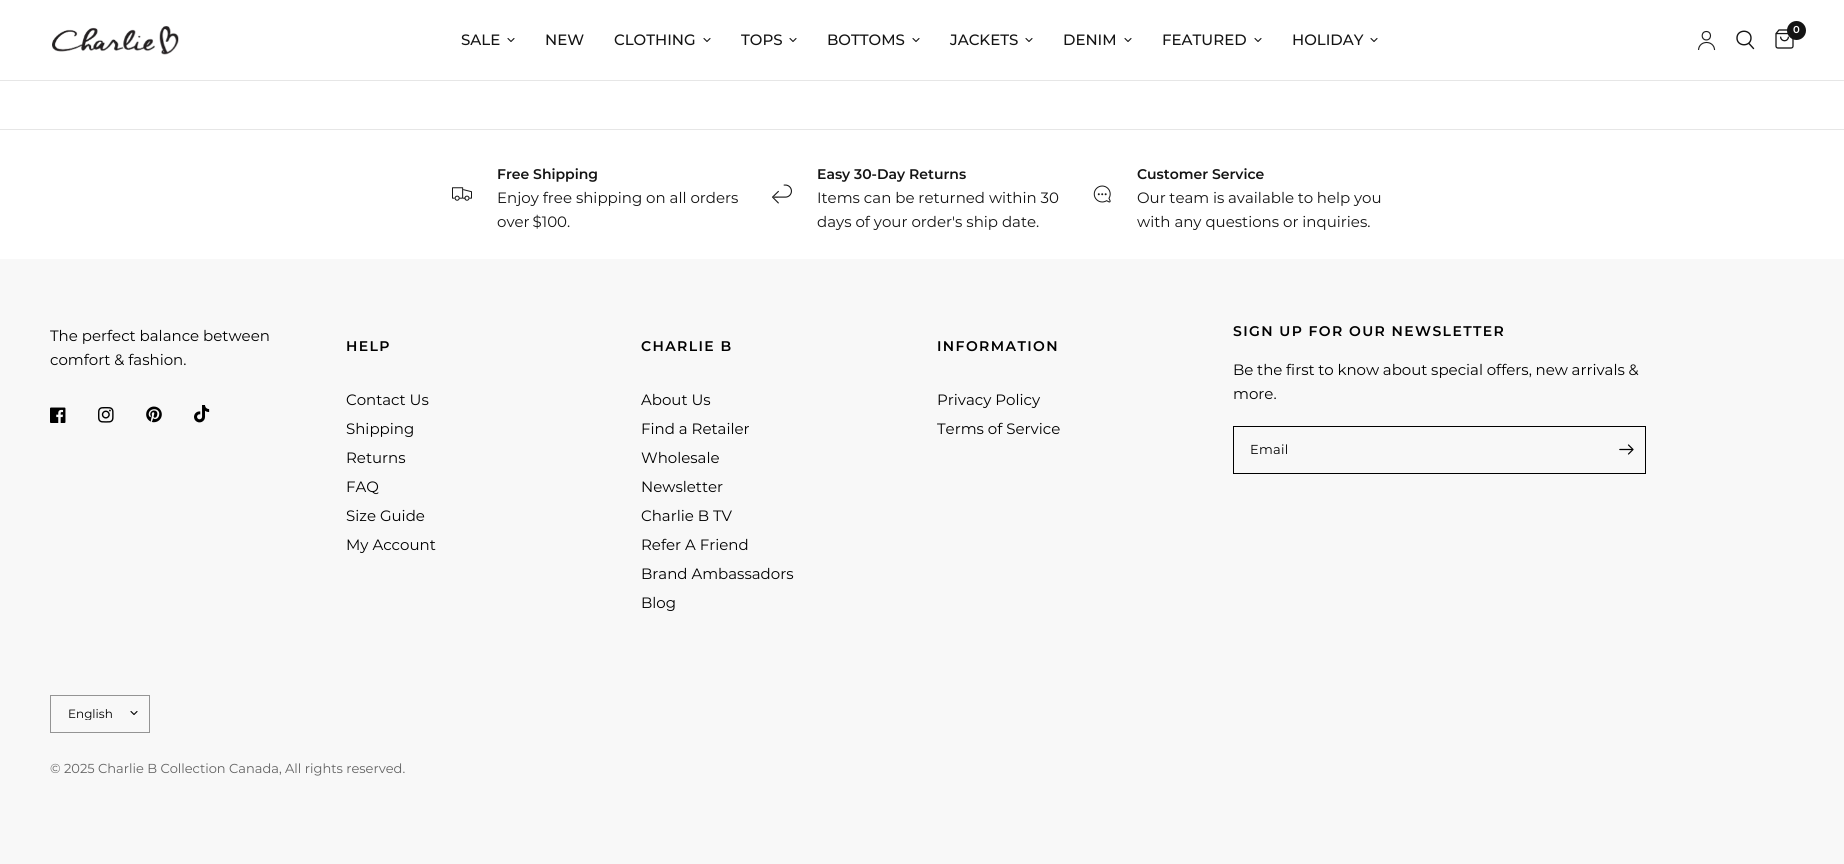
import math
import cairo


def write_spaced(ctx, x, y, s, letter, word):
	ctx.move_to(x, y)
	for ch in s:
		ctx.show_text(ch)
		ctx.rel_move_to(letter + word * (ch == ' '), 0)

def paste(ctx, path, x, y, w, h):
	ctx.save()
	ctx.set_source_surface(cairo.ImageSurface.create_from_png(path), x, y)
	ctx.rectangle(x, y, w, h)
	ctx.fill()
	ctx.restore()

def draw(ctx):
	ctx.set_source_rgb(1, 1, 1)
	ctx.paint()
	ctx.set_source_rgb(0.902, 0.902, 0.902)
	ctx.rectangle(0, 80, 1844, 1)
	ctx.fill()
	paste(ctx, 'media/1.png', 52, 26, 127, 29)
	ctx.select_font_face('Montserrat Medium')
	ctx.set_font_size(15)
	ctx.set_source_rgb(0.082, 0.082, 0.082)
	ctx.move_to(461, 45)
	ctx.show_text('SALE')
	ctx.new_path()
	ctx.move_to(514, 38.5)
	ctx.line_to(511, 41.5)
	ctx.line_to(508, 38.5)
	ctx.set_line_width(1.1)
	ctx.set_line_cap(cairo.LINE_CAP_ROUND)
	ctx.set_line_join(cairo.LINE_JOIN_ROUND)
	ctx.stroke()
	ctx.move_to(545, 45)
	ctx.show_text('NEW')
	ctx.move_to(614, 45)
	ctx.show_text('CLOTHING')
	ctx.new_path()
	ctx.move_to(710, 38.5)
	ctx.line_to(707, 41.5)
	ctx.line_to(704, 38.5)
	ctx.stroke()
	ctx.move_to(741, 45)
	ctx.show_text('TOPS')
	ctx.new_path()
	ctx.move_to(796, 38.5)
	ctx.line_to(793, 41.5)
	ctx.line_to(790, 38.5)
	ctx.stroke()
	ctx.move_to(827, 45)
	ctx.show_text('BOTTOMS')
	ctx.new_path()
	ctx.move_to(919, 38.5)
	ctx.line_to(916, 41.5)
	ctx.line_to(913, 38.5)
	ctx.stroke()
	ctx.move_to(950, 45)
	ctx.show_text('JACKETS')
	ctx.new_path()
	ctx.move_to(1032, 38.5)
	ctx.line_to(1029, 41.5)
	ctx.line_to(1026, 38.5)
	ctx.stroke()
	ctx.move_to(1063, 45)
	ctx.show_text('DENIM')
	ctx.new_path()
	ctx.move_to(1131, 38.5)
	ctx.line_to(1128, 41.5)
	ctx.line_to(1125, 38.5)
	ctx.stroke()
	ctx.move_to(1162, 45)
	ctx.show_text('FEATURED')
	ctx.new_path()
	ctx.move_to(1261, 38.5)
	ctx.line_to(1258, 41.5)
	ctx.line_to(1255, 38.5)
	ctx.stroke()
	ctx.move_to(1292, 45)
	ctx.show_text('HOLIDAY')
	ctx.new_path()
	ctx.move_to(1377, 38.5)
	ctx.line_to(1374, 41.5)
	ctx.line_to(1371, 38.5)
	ctx.stroke()
	paste(ctx, 'media/2.png', 1698, 30, 18, 21)
	ctx.new_path()
	ctx.move_to(1749, 43.5)
	ctx.line_to(1753.5, 48.5)
	ctx.move_to(1751, 38)
	ctx.curve_to(1751, 47, 1737, 47, 1737, 38)
	ctx.curve_to(1737, 29, 1751, 29, 1751, 38)
	ctx.close_path()
	ctx.set_line_width(1.4)
	ctx.stroke()
	paste(ctx, 'media/3.png', 1775, 29, 19, 20)
	ctx.arc(1796.5, 30.5, 9.5, 0, 2 * math.pi)
	ctx.fill()
	ctx.select_font_face('Montserrat SemiBold')
	ctx.set_font_size(10)
	ctx.set_source_rgb(1, 1, 1)
	ctx.move_to(1793, 33)
	ctx.show_text('0')
	ctx.set_source_rgb(0.902, 0.902, 0.902)
	ctx.rectangle(0, 129, 1844, 1)
	ctx.fill()
	paste(ctx, 'media/4.png', 452, 187, 20, 14)
	ctx.set_font_size(14)
	ctx.set_source_rgb(0.082, 0.082, 0.082)
	ctx.move_to(497, 179)
	ctx.show_text('Free Shipping')
	ctx.select_font_face('Montserrat')
	ctx.set_font_size(15)
	ctx.move_to(497, 203)
	ctx.show_text('Enjoy free shipping on all orders')
	write_spaced(ctx, 497, 227, 'over $100.', 0, -1)
	paste(ctx, 'media/5.png', 772, 184, 20, 20)
	ctx.select_font_face('Montserrat SemiBold')
	ctx.set_font_size(14)
	ctx.move_to(817, 179)
	ctx.show_text('Easy 30-Day Returns')
	ctx.select_font_face('Montserrat')
	ctx.set_font_size(15)
	ctx.move_to(817, 203)
	ctx.show_text('Items can be returned within 30')
	ctx.move_to(817, 227)
	ctx.show_text('days of your order\'s ship date.')
	paste(ctx, 'media/6.png', 1093, 185, 18, 18)
	ctx.select_font_face('Montserrat SemiBold')
	ctx.set_font_size(14)
	ctx.move_to(1137, 179)
	ctx.show_text('Customer Service')
	ctx.select_font_face('Montserrat')
	ctx.set_font_size(15)
	write_spaced(ctx, 1137, 203, 'Our team is available to help you', 0, -0.25)
	ctx.move_to(1137, 227)
	ctx.show_text('with any questions or inquiries.')
	ctx.set_source_rgb(0.969, 0.969, 0.969)
	ctx.rectangle(0, 259, 1844, 605)
	ctx.fill()
	ctx.set_source_rgb(0, 0, 0)
	ctx.move_to(50, 341)
	ctx.show_text('The perfect balance between')
	ctx.move_to(50, 365)
	ctx.show_text('comfort & fashion.')
	paste(ctx, 'media/7.png', 50, 407, 16, 16)
	paste(ctx, 'media/8.png', 98, 407, 16, 16)
	paste(ctx, 'media/9.png', 146, 406, 16, 17)
	paste(ctx, 'media/10.png', 194, 405, 16, 18)
	ctx.select_font_face('Montserrat SemiBold')
	ctx.set_font_size(14)
	write_spaced(ctx, 346, 351, 'HELP', 1.4, 0)
	ctx.select_font_face('Montserrat')
	ctx.set_font_size(15)
	for x, y, s in [
		(346, 405, 'Contact Us'),
		(346, 434, 'Shipping'),
		(346, 463, 'Returns'),
		(346, 492, 'FAQ'),
		(346, 521, 'Size Guide'),
		(346, 550, 'My Account'),
	]:
		ctx.move_to(x, y)
		ctx.show_text(s)
	ctx.select_font_face('Montserrat SemiBold')
	ctx.set_font_size(14)
	write_spaced(ctx, 641, 351, 'CHARLIE B', 1.4, 0)
	ctx.select_font_face('Montserrat')
	ctx.set_font_size(15)
	for x, y, s in [
		(641, 405, 'About Us'),
		(641, 434, 'Find a Retailer'),
		(641, 463, 'Wholesale'),
		(641, 492, 'Newsletter'),
		(641, 521, 'Charlie B TV'),
		(641, 550, 'Refer A Friend'),
		(641, 579, 'Brand Ambassadors'),
		(641, 608, 'Blog'),
	]:
		ctx.move_to(x, y)
		ctx.show_text(s)
	ctx.select_font_face('Montserrat SemiBold')
	ctx.set_font_size(14)
	write_spaced(ctx, 937, 351, 'INFORMATION', 1.4, 0)
	ctx.select_font_face('Montserrat')
	ctx.set_font_size(15)
	ctx.move_to(937, 405)
	ctx.show_text('Privacy Policy')
	ctx.move_to(937, 434)
	ctx.show_text('Terms of Service')
	ctx.select_font_face('Montserrat SemiBold')
	ctx.set_font_size(14)
	write_spaced(ctx, 1233, 336, 'SIGN UP FOR OUR NEWSLETTER', 1.4, 0)
	ctx.select_font_face('Montserrat')
	ctx.set_font_size(15)
	write_spaced(ctx, 1233, 375, 'Be the first to know about special offers, new arrivals &', 0, -0.25)
	ctx.move_to(1233, 399)
	ctx.show_text('more.')
	ctx.rectangle(1233.5, 426.5, 412, 47)
	ctx.set_line_width(1)
	ctx.set_line_cap(cairo.LINE_CAP_BUTT)
	ctx.set_line_join(cairo.LINE_JOIN_MITER)
	ctx.stroke()
	ctx.set_font_size(13)
	write_spaced(ctx, 1250, 454, 'Email', 0.25, 0)
	paste(ctx, 'media/11.png', 1619, 444, 15, 11)
	ctx.rectangle(50.5, 695.5, 99, 37)
	ctx.set_source_rgb(0.58, 0.58, 0.58)
	ctx.stroke()
	ctx.save()
	ctx.rectangle(68, 708, 57, 12)
	ctx.clip()
	ctx.set_font_size(12)
	ctx.set_source_rgb(0, 0, 0)
	ctx.move_to(68, 718)
	ctx.show_text('English')
	ctx.restore()
	ctx.new_path()
	ctx.move_to(137, 711.5)
	ctx.line_to(134, 714.5)
	ctx.line_to(131, 711.5)
	ctx.set_source_rgb(0, 0, 0)
	ctx.set_line_width(1.1)
	ctx.set_line_cap(cairo.LINE_CAP_ROUND)
	ctx.set_line_join(cairo.LINE_JOIN_ROUND)
	ctx.stroke()
	ctx.set_source_rgb(0.388, 0.388, 0.388)
	ctx.move_to(50, 773)
	ctx.show_text('© 2025 Charlie B Collection Canada, All rights reserved.')


surface = cairo.ImageSurface(cairo.FORMAT_RGB24, 1844, 864)
ctx = cairo.Context(surface)
options = cairo.FontOptions()
options.set_hint_metrics(cairo.HINT_METRICS_OFF)
options.set_hint_style(cairo.HINT_STYLE_NONE)
ctx.set_font_options(options)
ctx.set_miter_limit(4)
draw(ctx)
surface.write_to_png('image.png')
